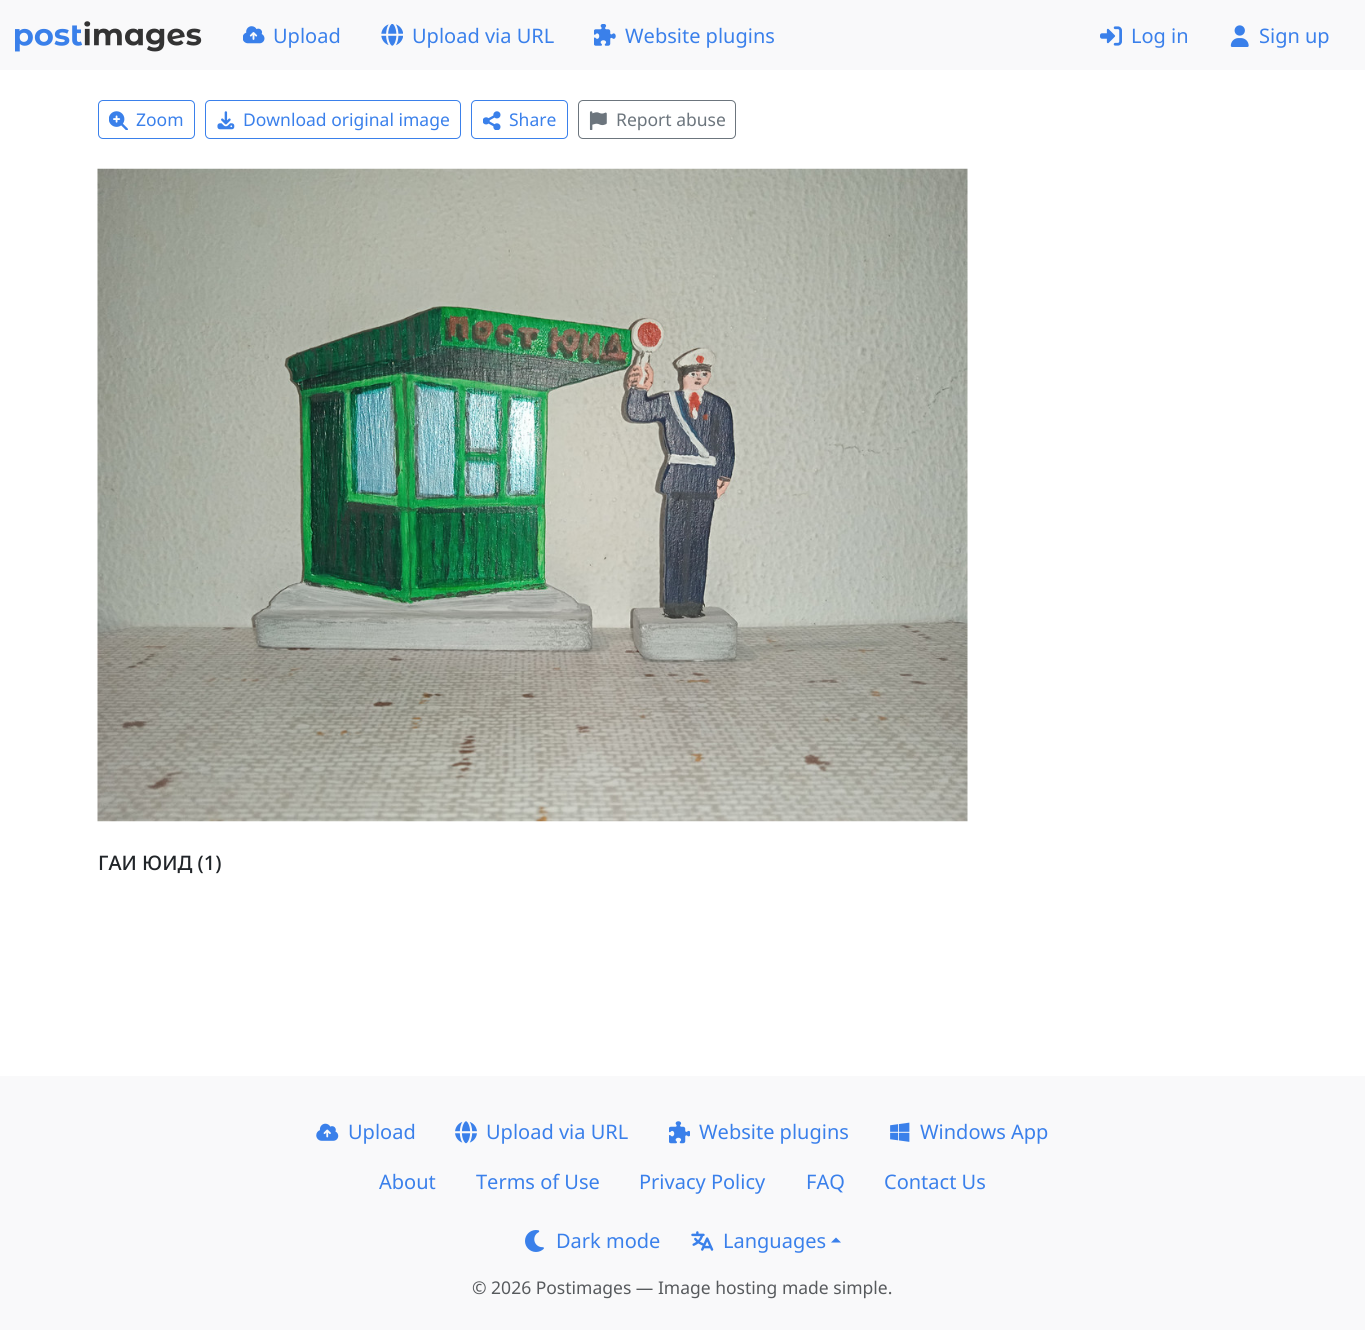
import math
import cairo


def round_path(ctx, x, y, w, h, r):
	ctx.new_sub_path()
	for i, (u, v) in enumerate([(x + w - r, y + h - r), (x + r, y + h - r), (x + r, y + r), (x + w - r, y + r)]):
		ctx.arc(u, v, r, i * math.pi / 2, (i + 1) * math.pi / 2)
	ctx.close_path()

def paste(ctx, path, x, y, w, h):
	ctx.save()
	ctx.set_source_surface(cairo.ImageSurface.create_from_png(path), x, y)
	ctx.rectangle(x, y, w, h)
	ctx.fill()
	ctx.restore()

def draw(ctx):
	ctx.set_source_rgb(1, 1, 1)
	ctx.paint()
	ctx.set_source_rgb(0.973, 0.976, 0.98)
	ctx.rectangle(0, 0, 1365, 70)
	ctx.fill()
	paste(ctx, 'media/1.png', 15, 21, 187, 31)
	paste(ctx, 'media/2.png', 243, 26, 22, 18)
	ctx.select_font_face('Noto Sans')
	ctx.set_font_size(20)
	ctx.set_source_rgb(0.227, 0.502, 0.918)
	ctx.move_to(273, 43)
	ctx.show_text('Upload')
	paste(ctx, 'media/3.png', 381, 24, 22, 22)
	ctx.move_to(412, 43)
	ctx.show_text('Upload via URL')
	paste(ctx, 'media/4.png', 594, 24, 22, 22)
	ctx.move_to(625, 43)
	ctx.show_text('Website plugins')
	paste(ctx, 'media/5.png', 1100, 26, 22, 20)
	ctx.move_to(1131, 43)
	ctx.show_text('Log in')
	paste(ctx, 'media/6.png', 1230, 25, 19, 22)
	ctx.move_to(1259, 43)
	ctx.show_text('Sign up')
	round_path(ctx, 98.5, 100.5, 96, 38, 4.5)
	ctx.set_line_width(1)
	ctx.stroke()
	paste(ctx, 'media/7.png', 109, 111, 19, 19)
	ctx.set_font_size(17.5)
	ctx.move_to(136, 126)
	ctx.show_text('Zoom')
	round_path(ctx, 205.5, 100.5, 255, 38, 4.5)
	ctx.stroke()
	paste(ctx, 'media/8.png', 217, 111, 18, 19)
	ctx.move_to(243, 126)
	ctx.show_text('Download original image')
	round_path(ctx, 471.5, 100.5, 96, 38, 4.5)
	ctx.stroke()
	paste(ctx, 'media/9.png', 483, 111, 18, 19)
	ctx.move_to(509, 126)
	ctx.show_text('Share')
	round_path(ctx, 578.5, 100.5, 157, 38, 4.5)
	ctx.set_source_rgb(0.424, 0.459, 0.49)
	ctx.stroke()
	paste(ctx, 'media/10.png', 589, 111, 18, 19)
	ctx.move_to(616, 126)
	ctx.show_text('Report abuse')
	paste(ctx, 'media/11.png', 97, 168, 871, 654)
	ctx.select_font_face('Noto Sans Medium')
	ctx.set_font_size(20)
	ctx.set_source_rgb(0.129, 0.145, 0.161)
	ctx.move_to(98, 870)
	ctx.show_text('ГАИ ЮИД (1)')
	ctx.set_source_rgb(0.973, 0.976, 0.98)
	ctx.rectangle(0, 1076, 1365, 254)
	ctx.fill()
	paste(ctx, 'media/12.png', 316, 1123, 23, 18)
	ctx.select_font_face('Noto Sans')
	ctx.set_source_rgb(0.227, 0.502, 0.918)
	ctx.move_to(348, 1139)
	ctx.show_text('Upload')
	paste(ctx, 'media/13.png', 455, 1121, 22, 23)
	ctx.move_to(486, 1139)
	ctx.show_text('Upload via URL')
	paste(ctx, 'media/14.png', 669, 1121, 21, 23)
	ctx.move_to(699, 1139)
	ctx.show_text('Website plugins')
	paste(ctx, 'media/15.png', 890, 1122, 20, 20)
	for x, y, s in [
		(920, 1139, 'Windows App'),
		(379, 1189, 'About'),
		(476, 1189, 'Terms of Use'),
		(639, 1189, 'Privacy Policy'),
		(806, 1189, 'FAQ'),
		(884, 1189, 'Contact Us'),
	]:
		ctx.move_to(x, y)
		ctx.show_text(s)
	paste(ctx, 'media/16.png', 525, 1230, 19, 22)
	ctx.move_to(556, 1248)
	ctx.show_text('Dark mode')
	paste(ctx, 'media/17.png', 691, 1231, 23, 20)
	ctx.move_to(723, 1248)
	ctx.show_text('Languages')
	ctx.new_path()
	ctx.move_to(841, 1242.5)
	ctx.line_to(831, 1242.5)
	ctx.line_to(836, 1237.5)
	ctx.close_path()
	ctx.fill()
	ctx.set_font_size(17.5)
	ctx.set_source_rgb(0.341, 0.353, 0.365)
	ctx.move_to(472, 1294)
	ctx.show_text('© 2026 Postimages — Image hosting made simple.')


surface = cairo.ImageSurface(cairo.FORMAT_RGB24, 1365, 1330)
ctx = cairo.Context(surface)
options = cairo.FontOptions()
options.set_hint_metrics(cairo.HINT_METRICS_OFF)
options.set_hint_style(cairo.HINT_STYLE_NONE)
ctx.set_font_options(options)
ctx.set_miter_limit(4)
draw(ctx)
surface.write_to_png('image.png')
